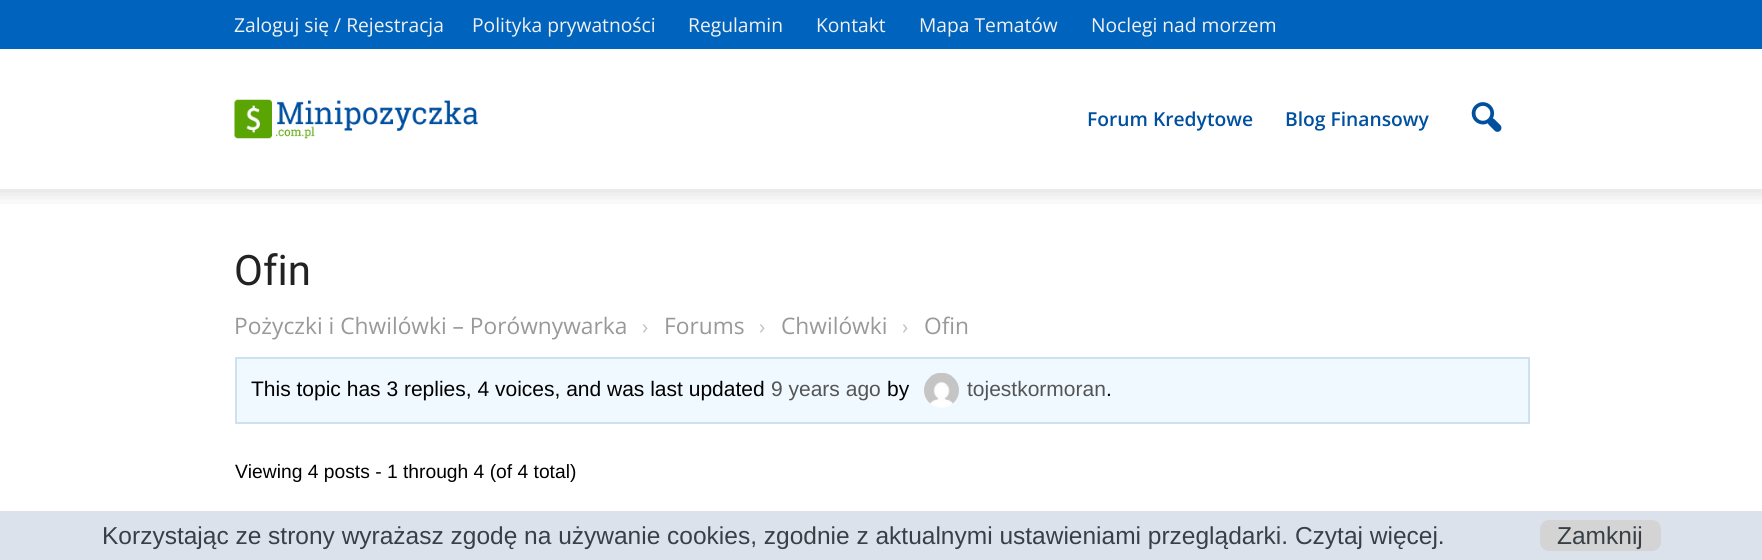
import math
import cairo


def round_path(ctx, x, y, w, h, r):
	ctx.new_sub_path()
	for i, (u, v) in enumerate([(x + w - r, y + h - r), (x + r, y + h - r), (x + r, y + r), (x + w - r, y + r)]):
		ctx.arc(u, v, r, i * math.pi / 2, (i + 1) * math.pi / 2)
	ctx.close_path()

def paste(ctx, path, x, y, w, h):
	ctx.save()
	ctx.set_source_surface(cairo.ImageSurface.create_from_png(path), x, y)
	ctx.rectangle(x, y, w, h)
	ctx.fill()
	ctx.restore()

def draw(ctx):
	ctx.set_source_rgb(1, 1, 1)
	ctx.paint()
	ctx.set_source_rgb(0, 0.392, 0.745)
	ctx.rectangle(0, 0, 1762, 49)
	ctx.fill()
	ctx.select_font_face('Open Sans')
	ctx.set_font_size(19.25)
	ctx.set_source_rgb(0.945, 0.945, 0.945)
	for x, y, s in [
		(234, 32, 'Zaloguj się / Rejestracja'),
		(472, 32, 'Polityka prywatności'),
		(688, 32, 'Regulamin'),
		(816, 32, 'Kontakt'),
		(919, 32, 'Mapa Tematów'),
		(1091, 32, 'Noclegi nad morzem'),
	]:
		ctx.move_to(x, y)
		ctx.show_text(s)
	paste(ctx, 'media/1.png', 234, 99, 244, 40)
	ctx.select_font_face('Open Sans SemiBold')
	ctx.set_source_rgb(0, 0.314, 0.624)
	ctx.move_to(1087, 126)
	ctx.show_text('Forum Kredytowe')
	ctx.move_to(1285, 126)
	ctx.show_text('Blog Finansowy')
	paste(ctx, 'media/2.png', 1471, 102, 31, 30)
	paste(ctx, 'media/3.png', 0, 189, 1762, 15)
	ctx.select_font_face('Roboto')
	ctx.set_font_size(42)
	ctx.set_source_rgb(0.133, 0.133, 0.133)
	ctx.move_to(234, 285)
	ctx.show_text('Ofin')
	ctx.select_font_face('Open Sans')
	ctx.set_font_size(22.75)
	ctx.set_source_rgb(0.604, 0.6, 0.6)
	ctx.move_to(234, 334)
	ctx.show_text('Pożyczki i Chwilówki – Porównywarka')
	ctx.set_font_size(21)
	ctx.set_source_rgb(0.765, 0.765, 0.765)
	ctx.move_to(642, 334)
	ctx.show_text('›')
	ctx.set_font_size(22.75)
	ctx.set_source_rgb(0.604, 0.6, 0.6)
	ctx.move_to(664, 334)
	ctx.show_text('Forums')
	ctx.set_font_size(21)
	ctx.set_source_rgb(0.765, 0.765, 0.765)
	ctx.move_to(759, 334)
	ctx.show_text('›')
	ctx.set_font_size(22.75)
	ctx.set_source_rgb(0.604, 0.6, 0.6)
	ctx.move_to(781, 334)
	ctx.show_text('Chwilówki')
	ctx.set_font_size(21)
	ctx.set_source_rgb(0.765, 0.765, 0.765)
	ctx.move_to(902, 334)
	ctx.show_text('›')
	ctx.set_font_size(22.75)
	ctx.set_source_rgb(0.604, 0.6, 0.6)
	ctx.move_to(924, 334)
	ctx.show_text('Ofin')
	ctx.set_source_rgb(0.941, 0.973, 1)
	ctx.rectangle(236, 358, 1293, 65)
	ctx.fill_preserve()
	ctx.set_source_rgb(0.808, 0.882, 0.937)
	ctx.stroke()
	ctx.select_font_face('Liberation Sans')
	ctx.set_font_size(21)
	ctx.set_source_rgb(0, 0, 0)
	ctx.move_to(251, 396)
	ctx.show_text('This topic has 3 replies, 4 voices, and was last updated')
	ctx.set_source_rgb(0.333, 0.333, 0.333)
	ctx.move_to(771, 396)
	ctx.show_text('9 years ago')
	ctx.set_source_rgb(0, 0, 0)
	ctx.move_to(887, 396)
	ctx.show_text('by')
	paste(ctx, 'media/4.png', 924, 373, 35, 35)
	ctx.set_source_rgb(0.333, 0.333, 0.333)
	ctx.move_to(967, 396)
	ctx.show_text('tojestkormoran')
	ctx.set_source_rgb(0, 0, 0)
	ctx.move_to(1106, 396)
	ctx.show_text('.')
	ctx.set_font_size(19.25)
	ctx.move_to(235, 478)
	ctx.show_text('Viewing 4 posts - 1 through 4 (of 4 total)')
	ctx.set_source_rgb(0.859, 0.886, 0.925)
	ctx.rectangle(0, 511, 1762, 49)
	ctx.fill()
	ctx.set_font_size(24.5)
	ctx.set_source_rgb(0.22, 0.251, 0.275)
	ctx.move_to(102, 544)
	ctx.show_text('Korzystając ze strony wyrażasz zgodę na używanie cookies, zgodnie z aktualnymi ustawieniami przeglądarki. Czytaj więcej.')
	ctx.set_source_rgb(0.831, 0.831, 0.831)
	round_path(ctx, 1540, 520, 121, 31, 9)
	ctx.fill()
	ctx.set_source_rgb(0.22, 0.251, 0.275)
	ctx.move_to(1557, 544)
	ctx.show_text('Zamknij')


surface = cairo.ImageSurface(cairo.FORMAT_RGB24, 1762, 560)
ctx = cairo.Context(surface)
options = cairo.FontOptions()
options.set_hint_metrics(cairo.HINT_METRICS_OFF)
options.set_hint_style(cairo.HINT_STYLE_NONE)
ctx.set_font_options(options)
ctx.set_miter_limit(4)
draw(ctx)
surface.write_to_png('image.png')
